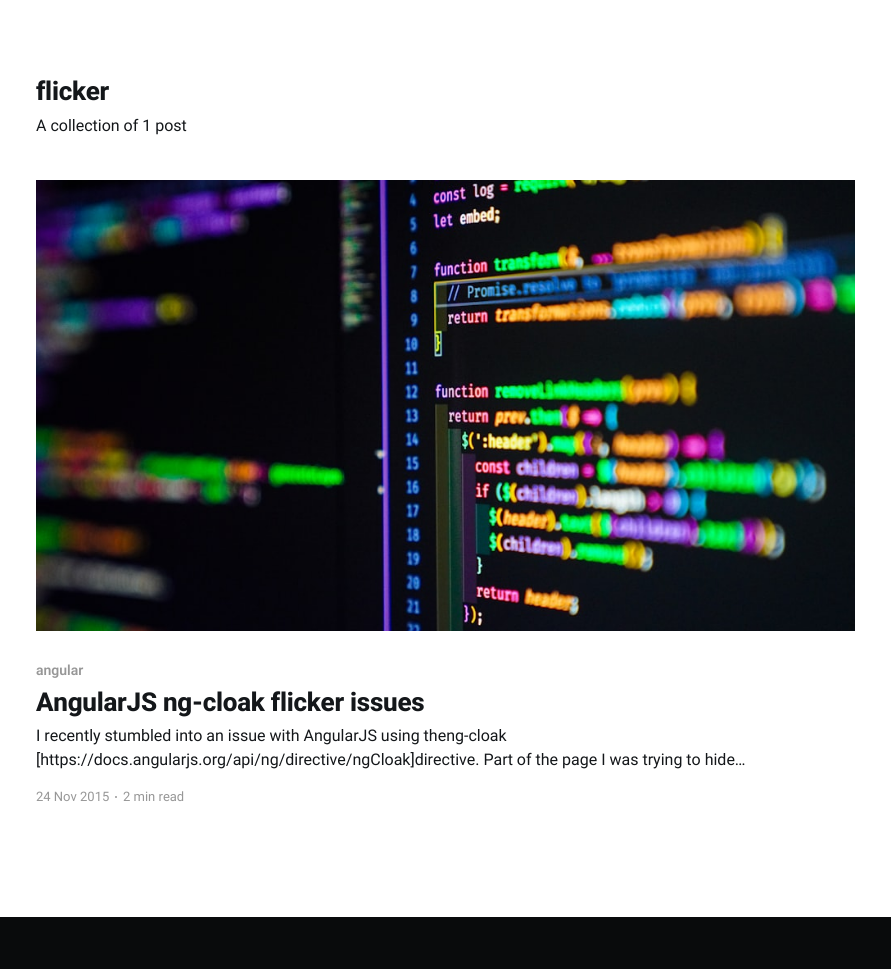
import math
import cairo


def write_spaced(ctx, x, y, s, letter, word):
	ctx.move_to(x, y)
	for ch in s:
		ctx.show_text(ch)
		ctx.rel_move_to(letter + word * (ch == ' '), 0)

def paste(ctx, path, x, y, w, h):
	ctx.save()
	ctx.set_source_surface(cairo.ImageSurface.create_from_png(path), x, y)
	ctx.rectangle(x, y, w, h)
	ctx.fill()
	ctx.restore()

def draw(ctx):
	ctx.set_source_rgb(1, 1, 1)
	ctx.paint()
	ctx.select_font_face('Roboto ExtraBold')
	ctx.set_font_size(26)
	ctx.set_source_rgb(0.082, 0.09, 0.102)
	write_spaced(ctx, 36, 100, 'flicker', -0.25, 0)
	ctx.select_font_face('Roboto')
	ctx.set_font_size(16)
	ctx.move_to(36, 131)
	ctx.show_text('A collection of 1 post')
	paste(ctx, 'media/1.png', 36, 180, 819, 451)
	ctx.select_font_face('Roboto SemiBold')
	ctx.set_font_size(14)
	ctx.set_source_rgb(0.592, 0.592, 0.592)
	ctx.move_to(36, 675)
	ctx.show_text('angular')
	ctx.select_font_face('Roboto ExtraBold')
	ctx.set_font_size(26)
	ctx.set_source_rgb(0.082, 0.09, 0.102)
	write_spaced(ctx, 36, 711, 'AngularJS ng-cloak flicker issues', -0.25, 0)
	ctx.select_font_face('Roboto')
	ctx.set_font_size(16)
	ctx.move_to(36, 741)
	ctx.show_text('I recently stumbled into an issue with AngularJS using theng-cloak')
	ctx.move_to(36, 765)
	ctx.show_text('[https://docs.angularjs.org/api/ng/directive/ngCloak]directive. Part of the page I was trying to hide…')
	ctx.set_font_size(13)
	ctx.set_source_rgb(0.592, 0.592, 0.592)
	ctx.move_to(36, 801)
	ctx.show_text('24 Nov 2015')
	ctx.new_path()
	ctx.arc(116, 797, 1, 0, 2 * math.pi)
	ctx.fill()
	ctx.move_to(123, 801)
	ctx.show_text('2 min read')
	ctx.set_source_rgb(0.039, 0.043, 0.047)
	ctx.rectangle(0, 917, 891, 52)
	ctx.fill()


surface = cairo.ImageSurface(cairo.FORMAT_RGB24, 891, 969)
ctx = cairo.Context(surface)
options = cairo.FontOptions()
options.set_hint_metrics(cairo.HINT_METRICS_OFF)
options.set_hint_style(cairo.HINT_STYLE_NONE)
ctx.set_font_options(options)
ctx.set_miter_limit(4)
draw(ctx)
surface.write_to_png('image.png')
